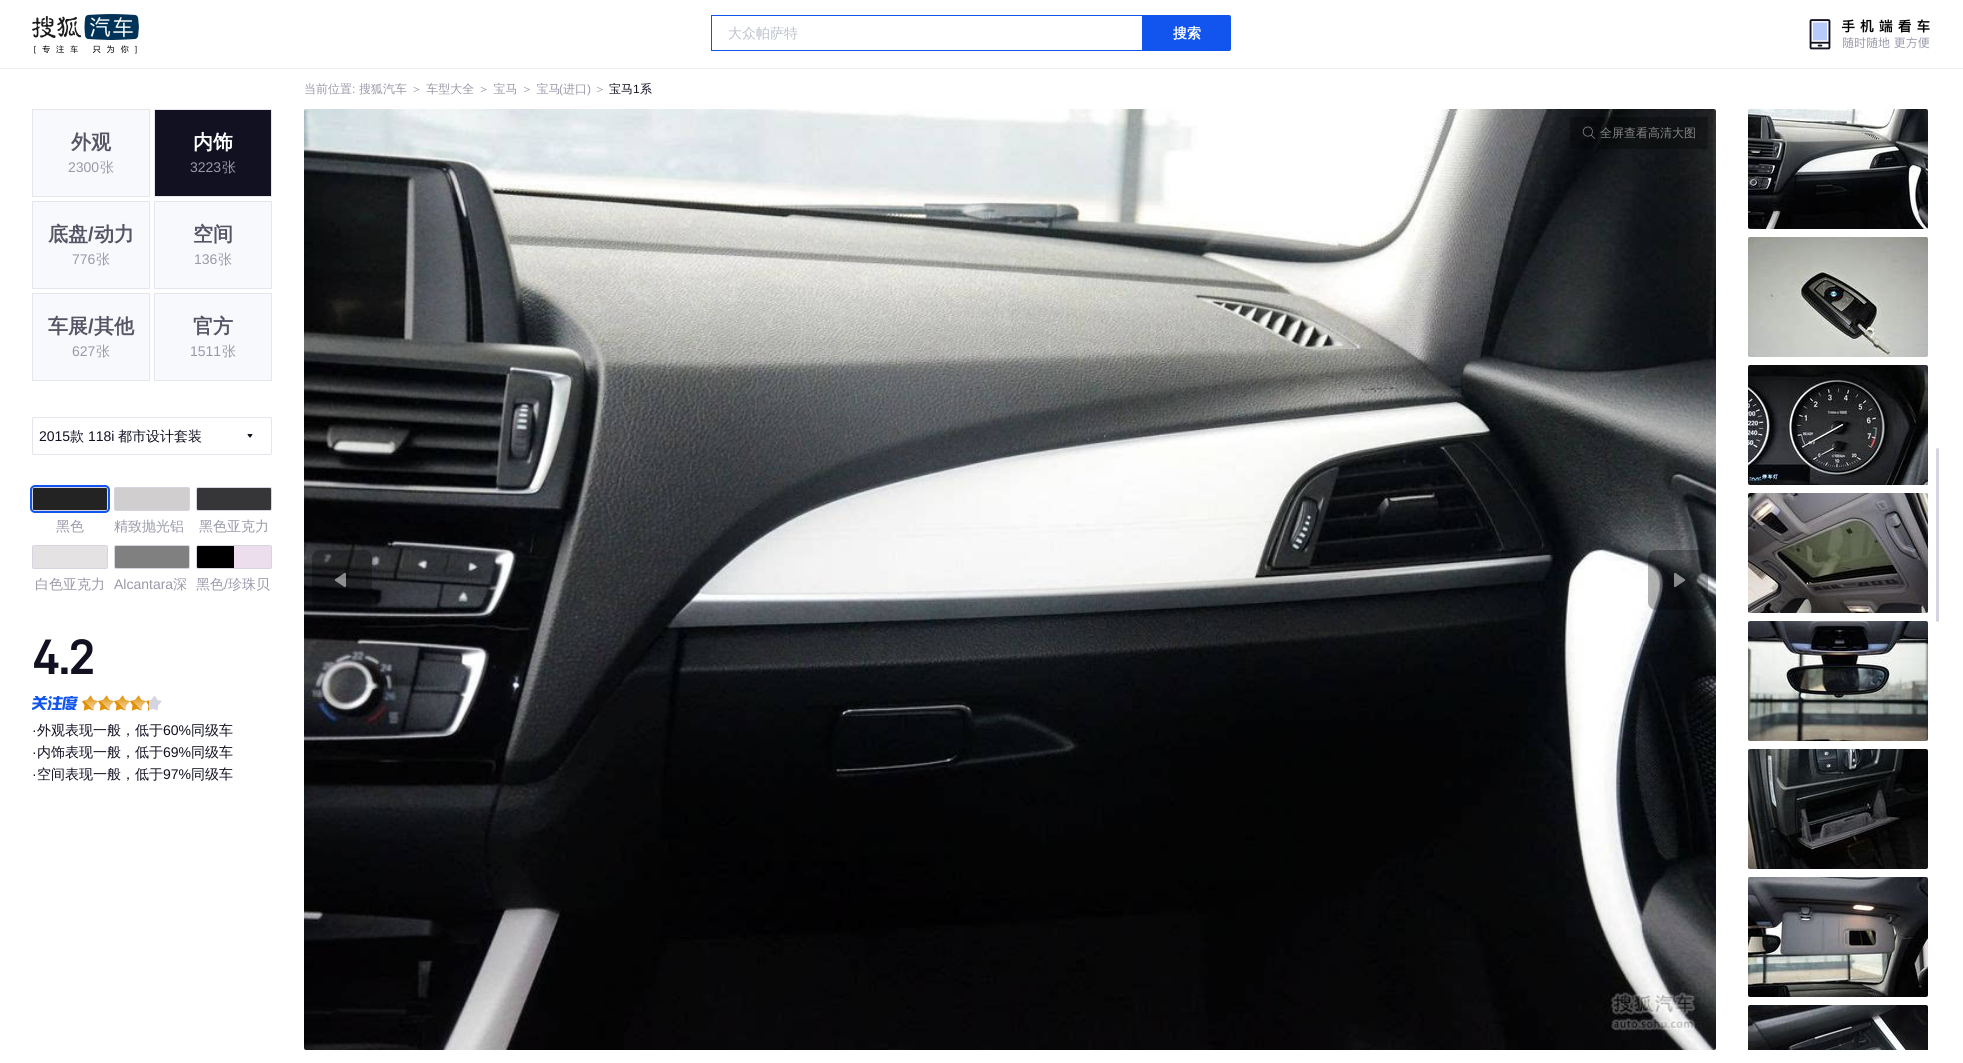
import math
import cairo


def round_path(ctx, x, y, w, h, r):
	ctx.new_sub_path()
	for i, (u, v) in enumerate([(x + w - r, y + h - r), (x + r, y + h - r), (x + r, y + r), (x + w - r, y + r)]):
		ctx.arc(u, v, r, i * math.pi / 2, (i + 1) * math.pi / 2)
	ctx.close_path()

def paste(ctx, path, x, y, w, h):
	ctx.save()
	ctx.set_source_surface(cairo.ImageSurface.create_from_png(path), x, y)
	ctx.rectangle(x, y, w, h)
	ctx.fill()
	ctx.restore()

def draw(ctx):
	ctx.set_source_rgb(1, 1, 1)
	ctx.paint()
	ctx.set_source_rgb(0.933, 0.933, 0.941)
	ctx.rectangle(0, 68, 1963, 1)
	ctx.fill()
	paste(ctx, 'media/1.png', 32, 14, 107, 40)
	ctx.rectangle(711.5, 15.5, 431, 35)
	ctx.set_source_rgb(0.067, 0.333, 0.933)
	ctx.set_line_width(1)
	ctx.stroke()
	ctx.select_font_face('WenQuanYi Zen Hei Medium')
	ctx.set_font_size(14)
	ctx.set_source_rgb(0.733, 0.761, 0.8)
	ctx.move_to(728, 38)
	ctx.show_text('大众帕萨特')
	ctx.set_source_rgb(0.067, 0.333, 0.933)
	ctx.new_path()
	ctx.move_to(1143, 15)
	ctx.line_to(1229, 15)
	ctx.curve_to(1230, 15, 1231, 16, 1231, 17)
	ctx.line_to(1231, 49)
	ctx.curve_to(1231, 50, 1230, 51, 1229, 51)
	ctx.line_to(1143, 51)
	ctx.close_path()
	ctx.fill()
	ctx.select_font_face('WenQuanYi Zen Hei', cairo.FONT_SLANT_NORMAL, cairo.FONT_WEIGHT_BOLD)
	ctx.set_source_rgb(1, 1, 1)
	ctx.move_to(1173, 38)
	ctx.show_text('搜索')
	paste(ctx, 'media/2.png', 1809, 19, 121, 31)
	ctx.select_font_face('WenQuanYi Zen Hei Medium')
	ctx.set_font_size(12)
	ctx.set_source_rgb(0.6, 0.6, 0.667)
	ctx.move_to(304, 93)
	ctx.show_text('当前位置')
	ctx.select_font_face('Liberation Sans')
	ctx.move_to(352, 93)
	ctx.show_text(':')
	ctx.select_font_face('WenQuanYi Zen Hei Medium')
	ctx.move_to(359, 93)
	ctx.show_text('搜狐汽车 ＞ 车型大全 ＞ 宝马 ＞ 宝马')
	ctx.select_font_face('Liberation Sans')
	ctx.move_to(559, 93)
	ctx.show_text('(')
	ctx.select_font_face('WenQuanYi Zen Hei Medium')
	ctx.move_to(563, 93)
	ctx.show_text('进口')
	ctx.select_font_face('Liberation Sans')
	ctx.move_to(587, 93)
	ctx.show_text(')')
	ctx.select_font_face('WenQuanYi Zen Hei Medium')
	ctx.move_to(594, 93)
	ctx.show_text('＞')
	ctx.set_source_rgb(0.067, 0.067, 0.133)
	ctx.move_to(609, 93)
	ctx.show_text('宝马')
	ctx.select_font_face('Liberation Sans')
	ctx.move_to(633, 93)
	ctx.show_text('1')
	ctx.select_font_face('WenQuanYi Zen Hei Medium')
	ctx.move_to(640, 93)
	ctx.show_text('系')
	ctx.set_source_rgb(0.969, 0.973, 0.988)
	ctx.rectangle(32.5, 109.5, 117, 87)
	ctx.fill_preserve()
	ctx.set_source_rgb(0.898, 0.898, 0.933)
	ctx.stroke()
	ctx.select_font_face('WenQuanYi Zen Hei', cairo.FONT_SLANT_NORMAL, cairo.FONT_WEIGHT_BOLD)
	ctx.set_font_size(20)
	ctx.set_source_rgb(0.333, 0.333, 0.4)
	ctx.move_to(71, 149)
	ctx.show_text('外观')
	ctx.select_font_face('Liberation Sans')
	ctx.set_font_size(14)
	ctx.set_source_rgb(0.6, 0.6, 0.667)
	ctx.move_to(68, 172)
	ctx.show_text('2300')
	ctx.select_font_face('WenQuanYi Zen Hei Medium')
	ctx.move_to(100, 172)
	ctx.show_text('张')
	ctx.set_source_rgb(0.067, 0.067, 0.133)
	ctx.rectangle(154.5, 109.5, 117, 87)
	ctx.fill_preserve()
	ctx.set_source_rgb(0.898, 0.898, 0.933)
	ctx.stroke()
	ctx.select_font_face('WenQuanYi Zen Hei', cairo.FONT_SLANT_NORMAL, cairo.FONT_WEIGHT_BOLD)
	ctx.set_font_size(20)
	ctx.set_source_rgb(1, 1, 1)
	ctx.move_to(193, 149)
	ctx.show_text('内饰')
	ctx.select_font_face('Liberation Sans')
	ctx.set_font_size(14)
	ctx.set_source_rgb(0.6, 0.6, 0.667)
	ctx.move_to(190, 172)
	ctx.show_text('3223')
	ctx.select_font_face('WenQuanYi Zen Hei Medium')
	ctx.move_to(222, 172)
	ctx.show_text('张')
	ctx.set_source_rgb(0.969, 0.973, 0.988)
	ctx.rectangle(32.5, 201.5, 117, 87)
	ctx.fill_preserve()
	ctx.set_source_rgb(0.898, 0.898, 0.933)
	ctx.stroke()
	ctx.select_font_face('WenQuanYi Zen Hei', cairo.FONT_SLANT_NORMAL, cairo.FONT_WEIGHT_BOLD)
	ctx.set_font_size(20)
	ctx.set_source_rgb(0.333, 0.333, 0.4)
	ctx.move_to(48, 241)
	ctx.show_text('底盘')
	ctx.select_font_face('Liberation Sans', cairo.FONT_SLANT_NORMAL, cairo.FONT_WEIGHT_BOLD)
	ctx.move_to(88, 241)
	ctx.show_text('/')
	ctx.select_font_face('WenQuanYi Zen Hei', cairo.FONT_SLANT_NORMAL, cairo.FONT_WEIGHT_BOLD)
	ctx.move_to(94, 241)
	ctx.show_text('动力')
	ctx.select_font_face('Liberation Sans')
	ctx.set_font_size(14)
	ctx.set_source_rgb(0.6, 0.6, 0.667)
	ctx.move_to(72, 264)
	ctx.show_text('776')
	ctx.select_font_face('WenQuanYi Zen Hei Medium')
	ctx.move_to(96, 264)
	ctx.show_text('张')
	ctx.set_source_rgb(0.969, 0.973, 0.988)
	ctx.rectangle(154.5, 201.5, 117, 87)
	ctx.fill_preserve()
	ctx.set_source_rgb(0.898, 0.898, 0.933)
	ctx.stroke()
	ctx.select_font_face('WenQuanYi Zen Hei', cairo.FONT_SLANT_NORMAL, cairo.FONT_WEIGHT_BOLD)
	ctx.set_font_size(20)
	ctx.set_source_rgb(0.333, 0.333, 0.4)
	ctx.move_to(193, 241)
	ctx.show_text('空间')
	ctx.select_font_face('Liberation Sans')
	ctx.set_font_size(14)
	ctx.set_source_rgb(0.6, 0.6, 0.667)
	ctx.move_to(194, 264)
	ctx.show_text('136')
	ctx.select_font_face('WenQuanYi Zen Hei Medium')
	ctx.move_to(218, 264)
	ctx.show_text('张')
	ctx.set_source_rgb(0.969, 0.973, 0.988)
	ctx.rectangle(32.5, 293.5, 117, 87)
	ctx.fill_preserve()
	ctx.set_source_rgb(0.898, 0.898, 0.933)
	ctx.stroke()
	ctx.select_font_face('WenQuanYi Zen Hei', cairo.FONT_SLANT_NORMAL, cairo.FONT_WEIGHT_BOLD)
	ctx.set_font_size(20)
	ctx.set_source_rgb(0.333, 0.333, 0.4)
	ctx.move_to(48, 333)
	ctx.show_text('车展')
	ctx.select_font_face('Liberation Sans', cairo.FONT_SLANT_NORMAL, cairo.FONT_WEIGHT_BOLD)
	ctx.move_to(88, 333)
	ctx.show_text('/')
	ctx.select_font_face('WenQuanYi Zen Hei', cairo.FONT_SLANT_NORMAL, cairo.FONT_WEIGHT_BOLD)
	ctx.move_to(94, 333)
	ctx.show_text('其他')
	ctx.select_font_face('Liberation Sans')
	ctx.set_font_size(14)
	ctx.set_source_rgb(0.6, 0.6, 0.667)
	ctx.move_to(72, 356)
	ctx.show_text('627')
	ctx.select_font_face('WenQuanYi Zen Hei Medium')
	ctx.move_to(96, 356)
	ctx.show_text('张')
	ctx.set_source_rgb(0.969, 0.973, 0.988)
	ctx.rectangle(154.5, 293.5, 117, 87)
	ctx.fill_preserve()
	ctx.set_source_rgb(0.898, 0.898, 0.933)
	ctx.stroke()
	ctx.select_font_face('WenQuanYi Zen Hei', cairo.FONT_SLANT_NORMAL, cairo.FONT_WEIGHT_BOLD)
	ctx.set_font_size(20)
	ctx.set_source_rgb(0.333, 0.333, 0.4)
	ctx.move_to(193, 333)
	ctx.show_text('官方')
	ctx.select_font_face('Liberation Sans')
	ctx.set_font_size(14)
	ctx.set_source_rgb(0.6, 0.6, 0.667)
	ctx.move_to(190, 356)
	ctx.show_text('1511')
	ctx.select_font_face('WenQuanYi Zen Hei Medium')
	ctx.move_to(222, 356)
	ctx.show_text('张')
	round_path(ctx, 32.5, 417.5, 239, 37, 1.5)
	ctx.set_source_rgb(0.898, 0.898, 0.933)
	ctx.stroke()
	ctx.select_font_face('Liberation Sans')
	ctx.set_source_rgb(0.067, 0.067, 0.133)
	ctx.move_to(39, 441)
	ctx.show_text('2015')
	ctx.select_font_face('WenQuanYi Zen Hei Medium')
	ctx.move_to(70, 441)
	ctx.show_text('款')
	ctx.select_font_face('Liberation Sans')
	ctx.move_to(88, 441)
	ctx.show_text('118i')
	ctx.select_font_face('WenQuanYi Zen Hei Medium')
	ctx.move_to(118, 441)
	ctx.show_text('都市设计套装')
	paste(ctx, 'media/3.png', 247, 434, 6, 4)
	round_path(ctx, 32.5, 487.5, 75, 23, 1.5)
	ctx.set_source_rgb(0.835, 0.835, 0.886)
	ctx.stroke()
	ctx.set_source_rgb(0.137, 0.137, 0.137)
	round_path(ctx, 33, 488, 74, 22, 1)
	ctx.fill()
	round_path(ctx, 31, 486, 78, 26, 4)
	ctx.set_source_rgb(0.067, 0.333, 0.933)
	ctx.set_line_width(2)
	ctx.stroke()
	ctx.set_source_rgb(0.6, 0.6, 0.667)
	ctx.move_to(56, 531)
	ctx.show_text('黑色')
	round_path(ctx, 114.5, 487.5, 75, 23, 1.5)
	ctx.set_source_rgb(0.835, 0.835, 0.886)
	ctx.set_line_width(1)
	ctx.stroke()
	ctx.set_source_rgb(0.816, 0.808, 0.812)
	round_path(ctx, 115, 488, 74, 22, 1)
	ctx.fill()
	ctx.set_source_rgb(0.6, 0.6, 0.667)
	ctx.move_to(114, 531)
	ctx.show_text('精致抛光铝')
	round_path(ctx, 196.5, 487.5, 75, 23, 1.5)
	ctx.set_source_rgb(0.835, 0.835, 0.886)
	ctx.stroke()
	ctx.set_source_rgb(0.212, 0.212, 0.22)
	round_path(ctx, 197, 488, 74, 22, 1)
	ctx.fill()
	ctx.set_source_rgb(0.6, 0.6, 0.667)
	ctx.move_to(199, 531)
	ctx.show_text('黑色亚克力')
	round_path(ctx, 32.5, 545.5, 75, 23, 1.5)
	ctx.set_source_rgb(0.835, 0.835, 0.886)
	ctx.stroke()
	ctx.set_source_rgb(0.894, 0.886, 0.89)
	round_path(ctx, 33, 546, 74, 22, 1)
	ctx.fill()
	ctx.set_source_rgb(0.6, 0.6, 0.667)
	ctx.move_to(35, 589)
	ctx.show_text('白色亚克力')
	round_path(ctx, 114.5, 545.5, 75, 23, 1.5)
	ctx.set_source_rgb(0.835, 0.835, 0.886)
	ctx.stroke()
	ctx.set_source_rgb(0.502, 0.502, 0.502)
	round_path(ctx, 115, 546, 74, 22, 1)
	ctx.fill()
	ctx.select_font_face('Liberation Sans')
	ctx.set_source_rgb(0.6, 0.6, 0.667)
	ctx.move_to(114, 589)
	ctx.show_text('Alcantara')
	ctx.select_font_face('WenQuanYi Zen Hei Medium')
	ctx.move_to(173, 589)
	ctx.show_text('深')
	round_path(ctx, 196.5, 545.5, 75, 23, 1.5)
	ctx.set_source_rgb(0.835, 0.835, 0.886)
	ctx.stroke()
	ctx.set_source_rgb(0, 0, 0)
	ctx.new_path()
	ctx.move_to(198, 546)
	ctx.line_to(234, 546)
	ctx.line_to(234, 568)
	ctx.line_to(198, 568)
	ctx.curve_to(197.5, 568, 197, 567.5, 197, 567)
	ctx.line_to(197, 547)
	ctx.curve_to(197, 546.5, 197.5, 546, 198, 546)
	ctx.close_path()
	ctx.fill()
	ctx.set_source_rgb(0.922, 0.871, 0.922)
	ctx.new_path()
	ctx.move_to(234, 546)
	ctx.line_to(270, 546)
	ctx.curve_to(270.5, 546, 271, 546.5, 271, 547)
	ctx.line_to(271, 567)
	ctx.curve_to(271, 567.5, 270.5, 568, 270, 568)
	ctx.line_to(234, 568)
	ctx.close_path()
	ctx.fill()
	ctx.set_source_rgb(0.6, 0.6, 0.667)
	ctx.move_to(196, 589)
	ctx.show_text('黑色')
	ctx.select_font_face('Liberation Sans')
	ctx.move_to(224, 589)
	ctx.show_text('/')
	ctx.select_font_face('WenQuanYi Zen Hei Medium')
	ctx.move_to(228, 589)
	ctx.show_text('珍珠贝')
	ctx.select_font_face('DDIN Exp', cairo.FONT_SLANT_NORMAL, cairo.FONT_WEIGHT_BOLD)
	ctx.set_font_size(48)
	ctx.set_source_rgb(0.067, 0.067, 0.133)
	ctx.move_to(32, 674)
	ctx.show_text('4.2')
	paste(ctx, 'media/4.png', 32, 696, 46, 14)
	paste(ctx, 'media/5.png', 82, 695, 16, 16)
	paste(ctx, 'media/6.png', 82, 695, 16, 16)
	paste(ctx, 'media/5.png', 98, 695, 16, 16)
	paste(ctx, 'media/6.png', 98, 695, 16, 16)
	paste(ctx, 'media/5.png', 114, 695, 16, 16)
	paste(ctx, 'media/6.png', 114, 695, 16, 16)
	paste(ctx, 'media/5.png', 130, 695, 16, 16)
	paste(ctx, 'media/6.png', 130, 695, 16, 16)
	paste(ctx, 'media/5.png', 146, 695, 16, 16)
	paste(ctx, 'media/7.png', 146, 700, 3, 11)
	ctx.select_font_face('Liberation Sans')
	ctx.set_font_size(14)
	ctx.move_to(32, 735)
	ctx.show_text('·')
	ctx.select_font_face('WenQuanYi Zen Hei Medium')
	ctx.move_to(37, 735)
	ctx.show_text('外观表现一般，低于')
	ctx.select_font_face('Liberation Sans')
	ctx.move_to(163, 735)
	ctx.show_text('60%')
	ctx.select_font_face('WenQuanYi Zen Hei Medium')
	ctx.move_to(191, 735)
	ctx.show_text('同级车')
	ctx.select_font_face('Liberation Sans')
	ctx.move_to(32, 757)
	ctx.show_text('·')
	ctx.select_font_face('WenQuanYi Zen Hei Medium')
	ctx.move_to(37, 757)
	ctx.show_text('内饰表现一般，低于')
	ctx.select_font_face('Liberation Sans')
	ctx.move_to(163, 757)
	ctx.show_text('69%')
	ctx.select_font_face('WenQuanYi Zen Hei Medium')
	ctx.move_to(191, 757)
	ctx.show_text('同级车')
	ctx.select_font_face('Liberation Sans')
	ctx.move_to(32, 779)
	ctx.show_text('·')
	ctx.select_font_face('WenQuanYi Zen Hei Medium')
	ctx.move_to(37, 779)
	ctx.show_text('空间表现一般，低于')
	ctx.select_font_face('Liberation Sans')
	ctx.move_to(163, 779)
	ctx.show_text('97%')
	ctx.select_font_face('WenQuanYi Zen Hei Medium')
	ctx.move_to(191, 779)
	ctx.show_text('同级车')
	paste(ctx, 'media/8.png', 304, 109, 1412, 941)
	ctx.set_source_rgba(0, 0, 0, 0.3)
	round_path(ctx, 1570, 117, 138, 32, 2)
	ctx.fill()
	paste(ctx, 'media/9.png', 1582, 126, 13, 13)
	ctx.set_font_size(12)
	ctx.set_source_rgb(0.529, 0.533, 0.533)
	ctx.move_to(1600, 137)
	ctx.show_text('全屏查看高清大图')
	ctx.set_source_rgba(0, 0, 0, 0.3)
	round_path(ctx, 312, 550, 60, 60, 8)
	ctx.fill()
	paste(ctx, 'media/10.png', 334, 572, 12, 16)
	round_path(ctx, 1648, 550, 60, 60, 8)
	ctx.fill()
	paste(ctx, 'media/11.png', 1674, 572, 12, 16)
	paste(ctx, 'media/12.png', 1748, 109, 180, 120)
	paste(ctx, 'media/13.png', 1748, 237, 180, 120)
	paste(ctx, 'media/14.png', 1748, 365, 180, 120)
	paste(ctx, 'media/15.png', 1748, 493, 180, 120)
	paste(ctx, 'media/16.png', 1748, 621, 180, 120)
	paste(ctx, 'media/17.png', 1748, 749, 180, 120)
	paste(ctx, 'media/18.png', 1748, 877, 180, 120)
	paste(ctx, 'media/19.png', 1748, 1005, 180, 45)
	ctx.set_source_rgb(0.835, 0.835, 0.886)
	round_path(ctx, 1936, 448, 3, 174, 1.5)
	ctx.fill()


surface = cairo.ImageSurface(cairo.FORMAT_RGB24, 1963, 1063)
ctx = cairo.Context(surface)
options = cairo.FontOptions()
options.set_hint_metrics(cairo.HINT_METRICS_OFF)
options.set_hint_style(cairo.HINT_STYLE_NONE)
ctx.set_font_options(options)
ctx.set_miter_limit(4)
draw(ctx)
surface.write_to_png('image.png')
